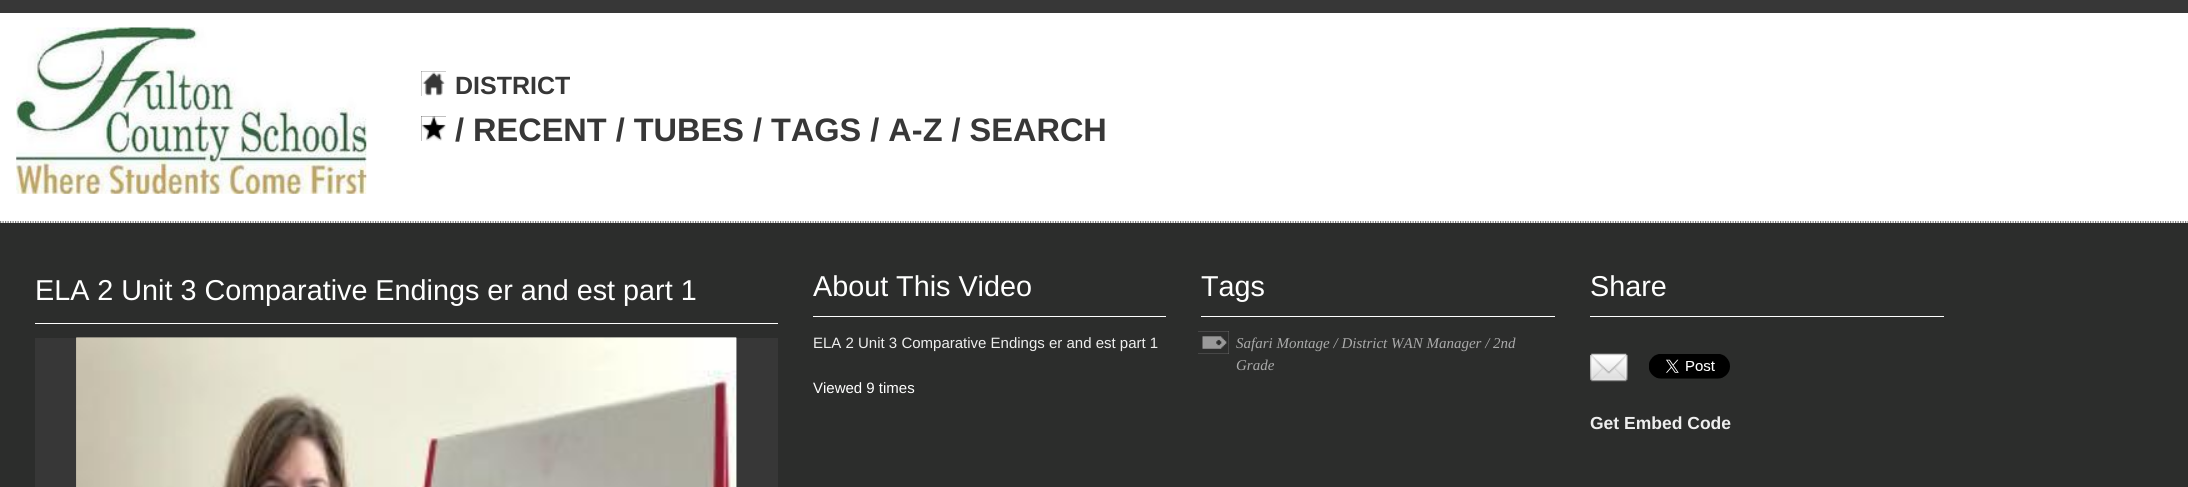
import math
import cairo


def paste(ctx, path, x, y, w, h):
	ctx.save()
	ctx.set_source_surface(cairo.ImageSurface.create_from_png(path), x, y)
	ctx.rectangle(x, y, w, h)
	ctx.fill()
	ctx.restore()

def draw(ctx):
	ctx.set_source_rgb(1, 1, 1)
	ctx.paint()
	ctx.set_source_rgb(0.216, 0.216, 0.216)
	ctx.rectangle(0, 0, 2188, 13)
	ctx.fill()
	ctx.new_path()
	ctx.move_to(0, 222)
	ctx.line_to(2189, 222)
	ctx.set_line_width(1.2)
	ctx.set_dash([1.25, 1.25])
	ctx.stroke()
	paste(ctx, 'media/1.png', 16, 27, 351, 167)
	ctx.rectangle(421, 71, 25, 25)
	ctx.fill()
	paste(ctx, 'media/2.png', 421, 71, 25, 25)
	ctx.select_font_face('Liberation Sans', cairo.FONT_SLANT_NORMAL, cairo.FONT_WEIGHT_BOLD)
	ctx.set_font_size(25)
	ctx.move_to(455, 94)
	ctx.show_text('DISTRICT')
	ctx.set_source_rgb(0, 0, 0)
	ctx.rectangle(421, 116, 25, 25)
	ctx.fill()
	paste(ctx, 'media/3.png', 421, 116, 25, 25)
	ctx.set_font_size(32.5)
	ctx.set_source_rgb(0.216, 0.216, 0.216)
	ctx.move_to(455, 141)
	ctx.show_text('/ RECENT / TUBES / TAGS / A-Z / SEARCH')
	ctx.set_source_rgb(0.173, 0.176, 0.173)
	ctx.rectangle(0, 223, 2188, 264)
	ctx.fill()
	ctx.set_source_rgb(1, 1, 1)
	ctx.rectangle(35, 323, 743, 1)
	ctx.fill()
	ctx.select_font_face('Liberation Sans')
	ctx.set_font_size(28.75)
	ctx.move_to(35, 300)
	ctx.show_text('ELA 2 Unit 3 Comparative Endings er and est part 1')
	ctx.set_source_rgb(0.216, 0.216, 0.216)
	ctx.rectangle(35, 338, 743, 149)
	ctx.fill()
	paste(ctx, 'media/4.png', 76, 337, 661, 150)
	paste(ctx, 'media/5.png', 76, 337, 661, 150)
	ctx.set_source_rgb(1, 1, 1)
	ctx.rectangle(813, 316, 353, 1)
	ctx.fill()
	ctx.move_to(813, 296)
	ctx.show_text('About This Video')
	ctx.set_font_size(15)
	ctx.set_source_rgb(0.933, 0.933, 0.933)
	ctx.move_to(813, 348)
	ctx.show_text('ELA 2 Unit 3 Comparative Endings er and est part 1')
	ctx.set_source_rgb(1, 1, 1)
	ctx.move_to(813, 393)
	ctx.show_text('Viewed 9 times')
	ctx.rectangle(1201, 316, 354, 1)
	ctx.fill()
	ctx.set_font_size(28.75)
	ctx.move_to(1201, 296)
	ctx.show_text('Tags')
	ctx.set_source_rgb(0.6, 0.6, 0.6)
	ctx.rectangle(1198, 331, 31, 23)
	ctx.fill()
	paste(ctx, 'media/6.png', 1198, 331, 31, 23)
	ctx.select_font_face('Liberation Serif', cairo.FONT_SLANT_ITALIC)
	ctx.set_font_size(15)
	ctx.set_source_rgb(0.667, 0.667, 0.667)
	ctx.move_to(1236, 348)
	ctx.show_text('Safari Montage / District WAN Manager / 2nd')
	ctx.move_to(1236, 370)
	ctx.show_text('Grade')
	ctx.set_source_rgb(1, 1, 1)
	ctx.rectangle(1590, 316, 354, 1)
	ctx.fill()
	ctx.select_font_face('Liberation Sans')
	ctx.set_font_size(28.75)
	ctx.move_to(1590, 296)
	ctx.show_text('Share')
	paste(ctx, 'media/7.png', 1590, 353, 38, 29)
	paste(ctx, 'media/8.png', 1649, 354, 81, 25)
	ctx.select_font_face('Liberation Sans', cairo.FONT_SLANT_NORMAL, cairo.FONT_WEIGHT_BOLD)
	ctx.set_font_size(17.5)
	ctx.set_source_rgb(0.933, 0.933, 0.933)
	ctx.move_to(1590, 429)
	ctx.show_text('Get Embed Code')


surface = cairo.ImageSurface(cairo.FORMAT_RGB24, 2188, 487)
ctx = cairo.Context(surface)
options = cairo.FontOptions()
options.set_hint_metrics(cairo.HINT_METRICS_OFF)
options.set_hint_style(cairo.HINT_STYLE_NONE)
ctx.set_font_options(options)
ctx.set_miter_limit(4)
draw(ctx)
surface.write_to_png('image.png')
